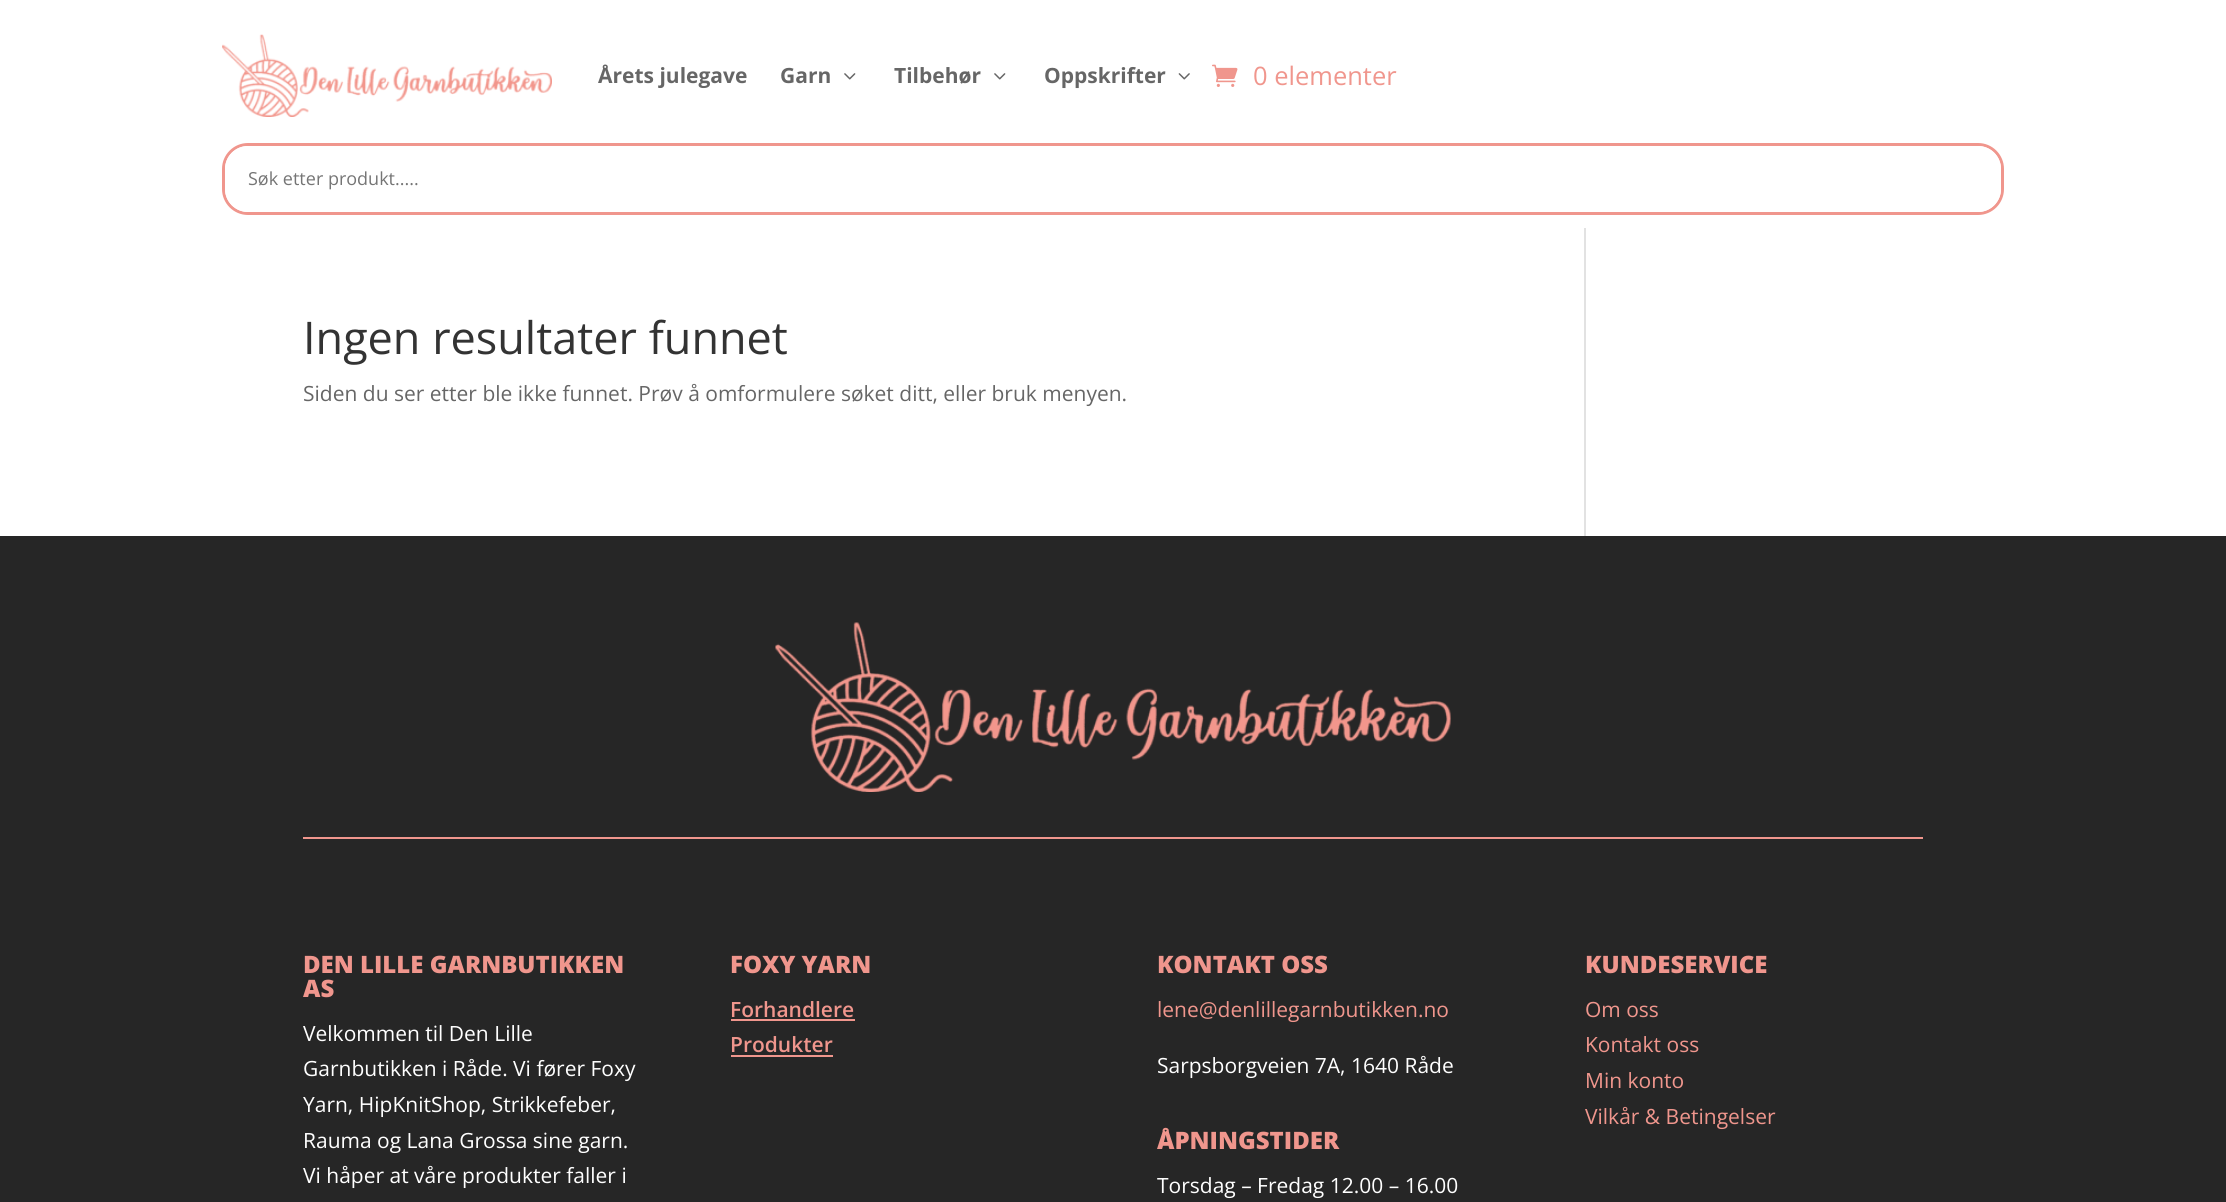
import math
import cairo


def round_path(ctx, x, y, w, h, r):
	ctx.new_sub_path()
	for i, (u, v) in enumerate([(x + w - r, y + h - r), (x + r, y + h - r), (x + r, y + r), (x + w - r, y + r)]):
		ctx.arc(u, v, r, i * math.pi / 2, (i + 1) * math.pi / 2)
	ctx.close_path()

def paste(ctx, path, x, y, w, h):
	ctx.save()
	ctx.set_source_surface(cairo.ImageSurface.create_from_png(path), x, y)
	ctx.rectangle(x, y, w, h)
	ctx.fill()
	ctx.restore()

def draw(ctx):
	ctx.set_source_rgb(1, 1, 1)
	ctx.paint()
	paste(ctx, 'media/1.png', 222, 34, 330, 83)
	ctx.select_font_face('Open Sans', cairo.FONT_SLANT_NORMAL, cairo.FONT_WEIGHT_BOLD)
	ctx.set_font_size(21)
	ctx.set_source_rgb(0.4, 0.4, 0.4)
	ctx.move_to(598, 83)
	ctx.show_text('Årets julegave')
	ctx.move_to(780, 83)
	ctx.show_text('Garn')
	paste(ctx, 'media/2.png', 844, 73, 12, 7)
	ctx.move_to(894, 83)
	ctx.show_text('Tilbehør')
	paste(ctx, 'media/2.png', 994, 73, 12, 7)
	ctx.move_to(1044, 83)
	ctx.show_text('Oppskrifter')
	paste(ctx, 'media/3.png', 1178, 73, 12, 7)
	paste(ctx, 'media/4.png', 1212, 64, 26, 23)
	ctx.select_font_face('Open Sans')
	ctx.set_font_size(25.5)
	ctx.set_source_rgb(0.941, 0.588, 0.553)
	ctx.move_to(1253, 85)
	ctx.show_text('0 elementer')
	round_path(ctx, 223.5, 144.5, 1779, 69, 24.5)
	ctx.set_line_width(3)
	ctx.stroke()
	ctx.set_source_rgb(1, 1, 1)
	round_path(ctx, 225, 146, 1776, 66, 23)
	ctx.fill()
	ctx.set_font_size(18)
	ctx.set_source_rgb(0.459, 0.459, 0.459)
	ctx.move_to(248, 185)
	ctx.show_text('Søk etter produkt.....')
	ctx.set_font_size(45)
	ctx.set_source_rgb(0.2, 0.2, 0.2)
	ctx.move_to(303, 354)
	ctx.show_text('Ingen resultater funnet')
	ctx.set_font_size(21)
	ctx.set_source_rgb(0.4, 0.4, 0.4)
	ctx.move_to(303, 401)
	ctx.show_text('Siden du ser etter ble ikke funnet. Prøv å omformulere søket ditt, eller bruk menyen.')
	ctx.set_source_rgb(0.886, 0.886, 0.886)
	ctx.rectangle(1584, 228, 2, 308)
	ctx.fill()
	ctx.set_source_rgb(0.149, 0.149, 0.149)
	ctx.rectangle(0, 536, 2226, 666)
	ctx.fill()
	paste(ctx, 'media/5.png', 775, 622, 676, 170)
	ctx.set_source_rgb(0.941, 0.588, 0.553)
	ctx.rectangle(303, 837, 1620, 2)
	ctx.fill()
	ctx.select_font_face('Open Sans ExtraBold')
	ctx.set_font_size(24)
	ctx.move_to(303, 973)
	ctx.show_text('DEN LILLE GARNBUTIKKEN')
	ctx.move_to(303, 997)
	ctx.show_text('AS')
	ctx.select_font_face('Open Sans')
	ctx.set_font_size(21)
	ctx.set_source_rgb(1, 1, 1)
	for x, y, s in [
		(303, 1041, 'Velkommen til Den Lille'),
		(303, 1076, 'Garnbutikken i Råde. Vi fører Foxy'),
		(303, 1112, 'Yarn, HipKnitShop, Strikkefeber,'),
		(303, 1148, 'Rauma og Lana Grossa sine garn.'),
		(303, 1183, 'Vi håper at våre produkter faller i'),
	]:
		ctx.move_to(x, y)
		ctx.show_text(s)
	ctx.select_font_face('Open Sans ExtraBold')
	ctx.set_font_size(24)
	ctx.set_source_rgb(0.941, 0.588, 0.553)
	ctx.move_to(730, 973)
	ctx.show_text('FOXY YARN')
	ctx.select_font_face('Open Sans SemiBold')
	ctx.set_font_size(21)
	ctx.move_to(730, 1017)
	ctx.show_text('Forhandlere')
	ctx.rectangle(731, 1019, 124, 2)
	ctx.fill()
	ctx.move_to(730, 1052)
	ctx.show_text('Produkter')
	ctx.rectangle(731, 1055, 102, 2)
	ctx.fill()
	ctx.select_font_face('Open Sans ExtraBold')
	ctx.set_font_size(24)
	ctx.move_to(1157, 973)
	ctx.show_text('KONTAKT OSS')
	ctx.select_font_face('Open Sans')
	ctx.set_font_size(21)
	ctx.move_to(1157, 1017)
	ctx.show_text('lene@denlillegarnbutikken.no')
	ctx.set_source_rgb(1, 1, 1)
	ctx.move_to(1157, 1073)
	ctx.show_text('Sarpsborgveien 7A, 1640 Råde')
	ctx.select_font_face('Open Sans ExtraBold')
	ctx.set_font_size(24)
	ctx.set_source_rgb(0.941, 0.588, 0.553)
	ctx.move_to(1157, 1149)
	ctx.show_text('ÅPNINGSTIDER')
	ctx.select_font_face('Open Sans')
	ctx.set_font_size(21)
	ctx.set_source_rgb(1, 1, 1)
	ctx.move_to(1157, 1193)
	ctx.show_text('Torsdag – Fredag 12.00 – 16.00')
	ctx.select_font_face('Open Sans ExtraBold')
	ctx.set_font_size(24)
	ctx.set_source_rgb(0.941, 0.588, 0.553)
	ctx.move_to(1585, 973)
	ctx.show_text('KUNDESERVICE')
	ctx.select_font_face('Open Sans')
	ctx.set_font_size(21)
	for x, y, s in [
		(1585, 1017, 'Om oss'),
		(1585, 1052, 'Kontakt oss'),
		(1585, 1088, 'Min konto'),
		(1585, 1124, 'Vilkår & Betingelser'),
	]:
		ctx.move_to(x, y)
		ctx.show_text(s)


surface = cairo.ImageSurface(cairo.FORMAT_RGB24, 2226, 1202)
ctx = cairo.Context(surface)
options = cairo.FontOptions()
options.set_hint_metrics(cairo.HINT_METRICS_OFF)
options.set_hint_style(cairo.HINT_STYLE_NONE)
ctx.set_font_options(options)
ctx.set_miter_limit(4)
draw(ctx)
surface.write_to_png('image.png')
